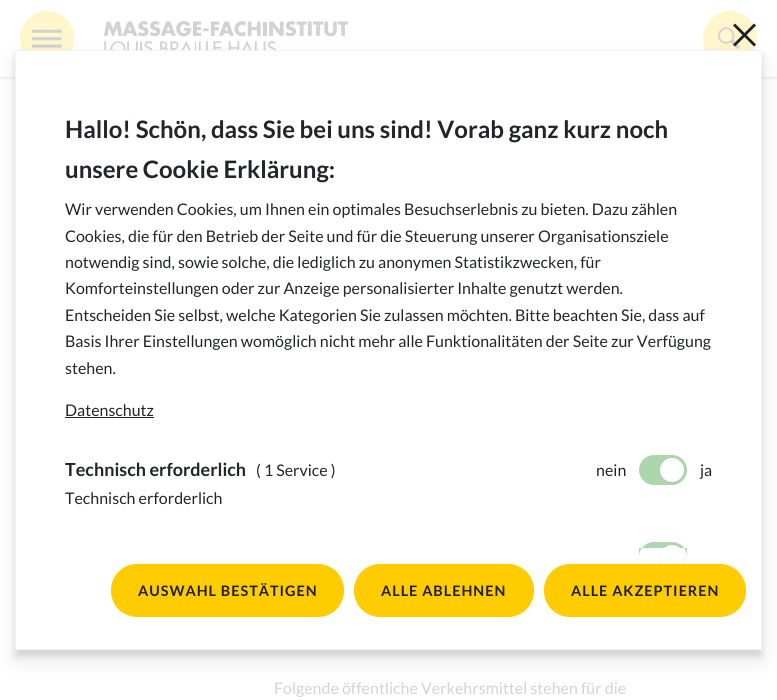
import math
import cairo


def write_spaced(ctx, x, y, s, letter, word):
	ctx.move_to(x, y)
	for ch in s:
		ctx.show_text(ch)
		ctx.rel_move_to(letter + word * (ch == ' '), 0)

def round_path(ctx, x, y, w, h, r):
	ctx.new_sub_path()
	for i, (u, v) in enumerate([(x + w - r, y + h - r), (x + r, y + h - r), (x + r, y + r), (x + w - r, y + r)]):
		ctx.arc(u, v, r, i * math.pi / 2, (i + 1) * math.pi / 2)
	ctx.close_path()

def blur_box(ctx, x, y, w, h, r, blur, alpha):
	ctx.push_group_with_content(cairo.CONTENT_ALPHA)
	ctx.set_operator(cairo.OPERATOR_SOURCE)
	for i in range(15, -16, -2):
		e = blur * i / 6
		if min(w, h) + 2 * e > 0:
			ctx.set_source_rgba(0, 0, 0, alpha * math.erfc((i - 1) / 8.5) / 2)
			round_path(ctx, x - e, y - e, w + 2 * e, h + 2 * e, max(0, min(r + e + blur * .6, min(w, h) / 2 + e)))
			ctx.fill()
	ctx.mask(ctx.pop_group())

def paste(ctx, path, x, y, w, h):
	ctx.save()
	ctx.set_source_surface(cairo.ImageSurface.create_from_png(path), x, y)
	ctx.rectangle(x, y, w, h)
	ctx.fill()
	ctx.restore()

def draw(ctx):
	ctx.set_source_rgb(1, 1, 1)
	ctx.paint()
	ctx.save()
	ctx.rectangle(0, 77, 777, 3)
	ctx.clip()
	ctx.set_source_rgb(0.8, 0.8, 0.8)
	blur_box(ctx, 0, 2, 777, 77, 0, 1, 0.3)
	ctx.restore()
	ctx.set_source_rgb(1, 0.961, 0.8)
	round_path(ctx, 20.5, 11.5, 53, 54, 26.5)
	ctx.fill_preserve()
	ctx.set_line_width(1)
	ctx.stroke()
	paste(ctx, 'media/1.png', 32, 29, 30, 19)
	paste(ctx, 'media/2.png', 104, 21, 244, 29)
	round_path(ctx, 703.5, 11.5, 53, 54, 26.5)
	ctx.fill_preserve()
	ctx.stroke()
	paste(ctx, 'media/3.png', 718, 27, 22, 23)
	ctx.set_source_rgb(0, 0, 0)
	blur_box(ctx, 15, 56, 747, 600, 0, 3, 0.1)
	blur_box(ctx, 15, 60, 747, 600, 0, 10, 0.1)
	ctx.set_source_rgb(1, 1, 1)
	ctx.rectangle(15.5, 50.5, 746, 599)
	ctx.fill_preserve()
	ctx.set_source_rgb(0.949, 0.949, 0.965)
	ctx.stroke()
	ctx.set_source_rgb(0.122, 0.122, 0.122)
	ctx.new_path()
	ctx.move_to(754, 23.5)
	ctx.line_to(756, 25.5)
	ctx.line_to(735, 46.5)
	ctx.line_to(733, 44.5)
	ctx.close_path()
	ctx.fill()
	ctx.new_path()
	ctx.move_to(733, 25.5)
	ctx.line_to(735, 23.5)
	ctx.line_to(756, 44.5)
	ctx.line_to(754, 46.5)
	ctx.close_path()
	ctx.fill()
	ctx.select_font_face('Lato', cairo.FONT_SLANT_NORMAL, cairo.FONT_WEIGHT_BOLD)
	ctx.set_font_size(24)
	ctx.set_source_rgb(0.129, 0.145, 0.161)
	ctx.move_to(65, 138)
	ctx.show_text('Hallo! Schön, dass Sie bei uns sind! Vorab ganz kurz noch')
	ctx.move_to(65, 178)
	ctx.show_text('unsere Cookie Erklärung:')
	ctx.select_font_face('Lato')
	ctx.set_font_size(16)
	for x, y, s in [
		(65, 215, 'Wir verwenden Cookies, um Ihnen ein optimales Besuchserlebnis zu bieten. Dazu zählen'),
		(65, 242, 'Cookies, die für den Betrieb der Seite und für die Steuerung unserer Organisationsziele'),
		(65, 268, 'notwendig sind, sowie solche, die lediglich zu anonymen Statistikzwecken, für'),
		(65, 294, 'Komforteinstellungen oder zur Anzeige personalisierter Inhalte genutzt werden.'),
		(65, 321, 'Entscheiden Sie selbst, welche Kategorien Sie zulassen möchten. Bitte beachten Sie, dass auf'),
		(65, 347, 'Basis Ihrer Einstellungen womöglich nicht mehr alle Funktionalitäten der Seite zur Verfügung'),
		(65, 374, 'stehen.'),
		(65, 416, 'Datenschutz'),
	]:
		ctx.move_to(x, y)
		ctx.show_text(s)
	ctx.rectangle(65, 417, 89, 1)
	ctx.fill()
	ctx.select_font_face('Lato', cairo.FONT_SLANT_NORMAL, cairo.FONT_WEIGHT_BOLD)
	ctx.set_font_size(18)
	ctx.move_to(65, 476)
	ctx.show_text('Technisch erforderlich')
	ctx.select_font_face('Lato')
	ctx.set_font_size(16)
	for x, y, s in [
		(256, 476, '( 1 Service )'),
		(65, 504, 'Technisch erforderlich'),
		(596, 476, 'nein'),
	]:
		ctx.move_to(x, y)
		ctx.show_text(s)
	ctx.set_source_rgb(0.678, 0.839, 0.678)
	round_path(ctx, 639, 455, 48, 30, 15)
	ctx.fill()
	ctx.set_source_rgb(0.6, 0.6, 0.6)
	blur_box(ctx, 660, 459, 24, 24, 12, 1, 0.24)
	ctx.set_source_rgb(1, 1, 1)
	ctx.arc(672, 470, 12, 0, 2 * math.pi)
	ctx.fill()
	ctx.set_source_rgb(0.129, 0.145, 0.161)
	ctx.move_to(700, 476)
	ctx.show_text('ja')
	ctx.set_source_rgb(0.678, 0.839, 0.678)
	ctx.new_path()
	ctx.move_to(654, 542)
	ctx.line_to(672, 542)
	ctx.curve_to(680.5, 542, 687, 548.5, 687, 557)
	ctx.line_to(687, 548)
	ctx.line_to(639, 548)
	ctx.line_to(639, 557)
	ctx.curve_to(639, 548.5, 645.5, 542, 654, 542)
	ctx.close_path()
	ctx.fill()
	ctx.save()
	ctx.set_fill_rule(cairo.FILL_RULE_EVEN_ODD)
	ctx.new_path()
	ctx.move_to(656, 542)
	ctx.line_to(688, 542)
	ctx.line_to(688, 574)
	ctx.line_to(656, 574)
	ctx.close_path()
	ctx.move_to(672, 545)
	ctx.curve_to(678.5, 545, 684, 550.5, 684, 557)
	ctx.curve_to(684, 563.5, 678.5, 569, 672, 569)
	ctx.curve_to(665.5, 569, 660, 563.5, 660, 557)
	ctx.curve_to(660, 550.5, 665.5, 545, 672, 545)
	ctx.close_path()
	ctx.clip()
	ctx.set_source_rgb(0.6, 0.6, 0.6)
	blur_box(ctx, 660, 546, 24, 24, 12, 1, 0.24)
	ctx.restore()
	ctx.set_source_rgb(1, 1, 1)
	ctx.new_path()
	ctx.move_to(672, 545)
	ctx.curve_to(678.5, 545, 684, 550.5, 684, 557)
	ctx.line_to(684, 548)
	ctx.line_to(660, 548)
	ctx.line_to(660, 557)
	ctx.curve_to(660, 550.5, 665.5, 545, 672, 545)
	ctx.close_path()
	ctx.fill()
	ctx.set_source_rgb(1, 0.8, 0.004)
	round_path(ctx, 111.5, 564.5, 232, 52, 25.5)
	ctx.fill_preserve()
	ctx.stroke()
	ctx.select_font_face('Lato', cairo.FONT_SLANT_NORMAL, cairo.FONT_WEIGHT_BOLD)
	ctx.set_font_size(14.4)
	ctx.set_source_rgb(0.122, 0.122, 0.122)
	write_spaced(ctx, 138, 596, 'AUSWAHL BESTÄTIGEN', 1, 0)
	ctx.set_source_rgb(1, 0.8, 0.004)
	round_path(ctx, 354.5, 564.5, 179, 52, 25.5)
	ctx.fill_preserve()
	ctx.stroke()
	ctx.set_source_rgb(0.122, 0.122, 0.122)
	write_spaced(ctx, 381, 596, 'ALLE ABLEHNEN', 1, 0)
	ctx.set_source_rgb(1, 0.8, 0.004)
	round_path(ctx, 544.5, 564.5, 201, 52, 25.5)
	ctx.fill_preserve()
	ctx.stroke()
	ctx.set_source_rgb(0.122, 0.122, 0.122)
	write_spaced(ctx, 571, 596, 'ALLE AKZEPTIEREN', 1, 0)
	ctx.select_font_face('Lato')
	ctx.set_font_size(16)
	ctx.set_source_rgb(0.827, 0.827, 0.831)
	ctx.move_to(274, 694)
	ctx.show_text('Folgende öffentliche Verkehrsmittel stehen für die')


surface = cairo.ImageSurface(cairo.FORMAT_RGB24, 777, 700)
ctx = cairo.Context(surface)
options = cairo.FontOptions()
options.set_hint_metrics(cairo.HINT_METRICS_OFF)
options.set_hint_style(cairo.HINT_STYLE_NONE)
ctx.set_font_options(options)
ctx.set_miter_limit(4)
draw(ctx)
surface.write_to_png('image.png')
